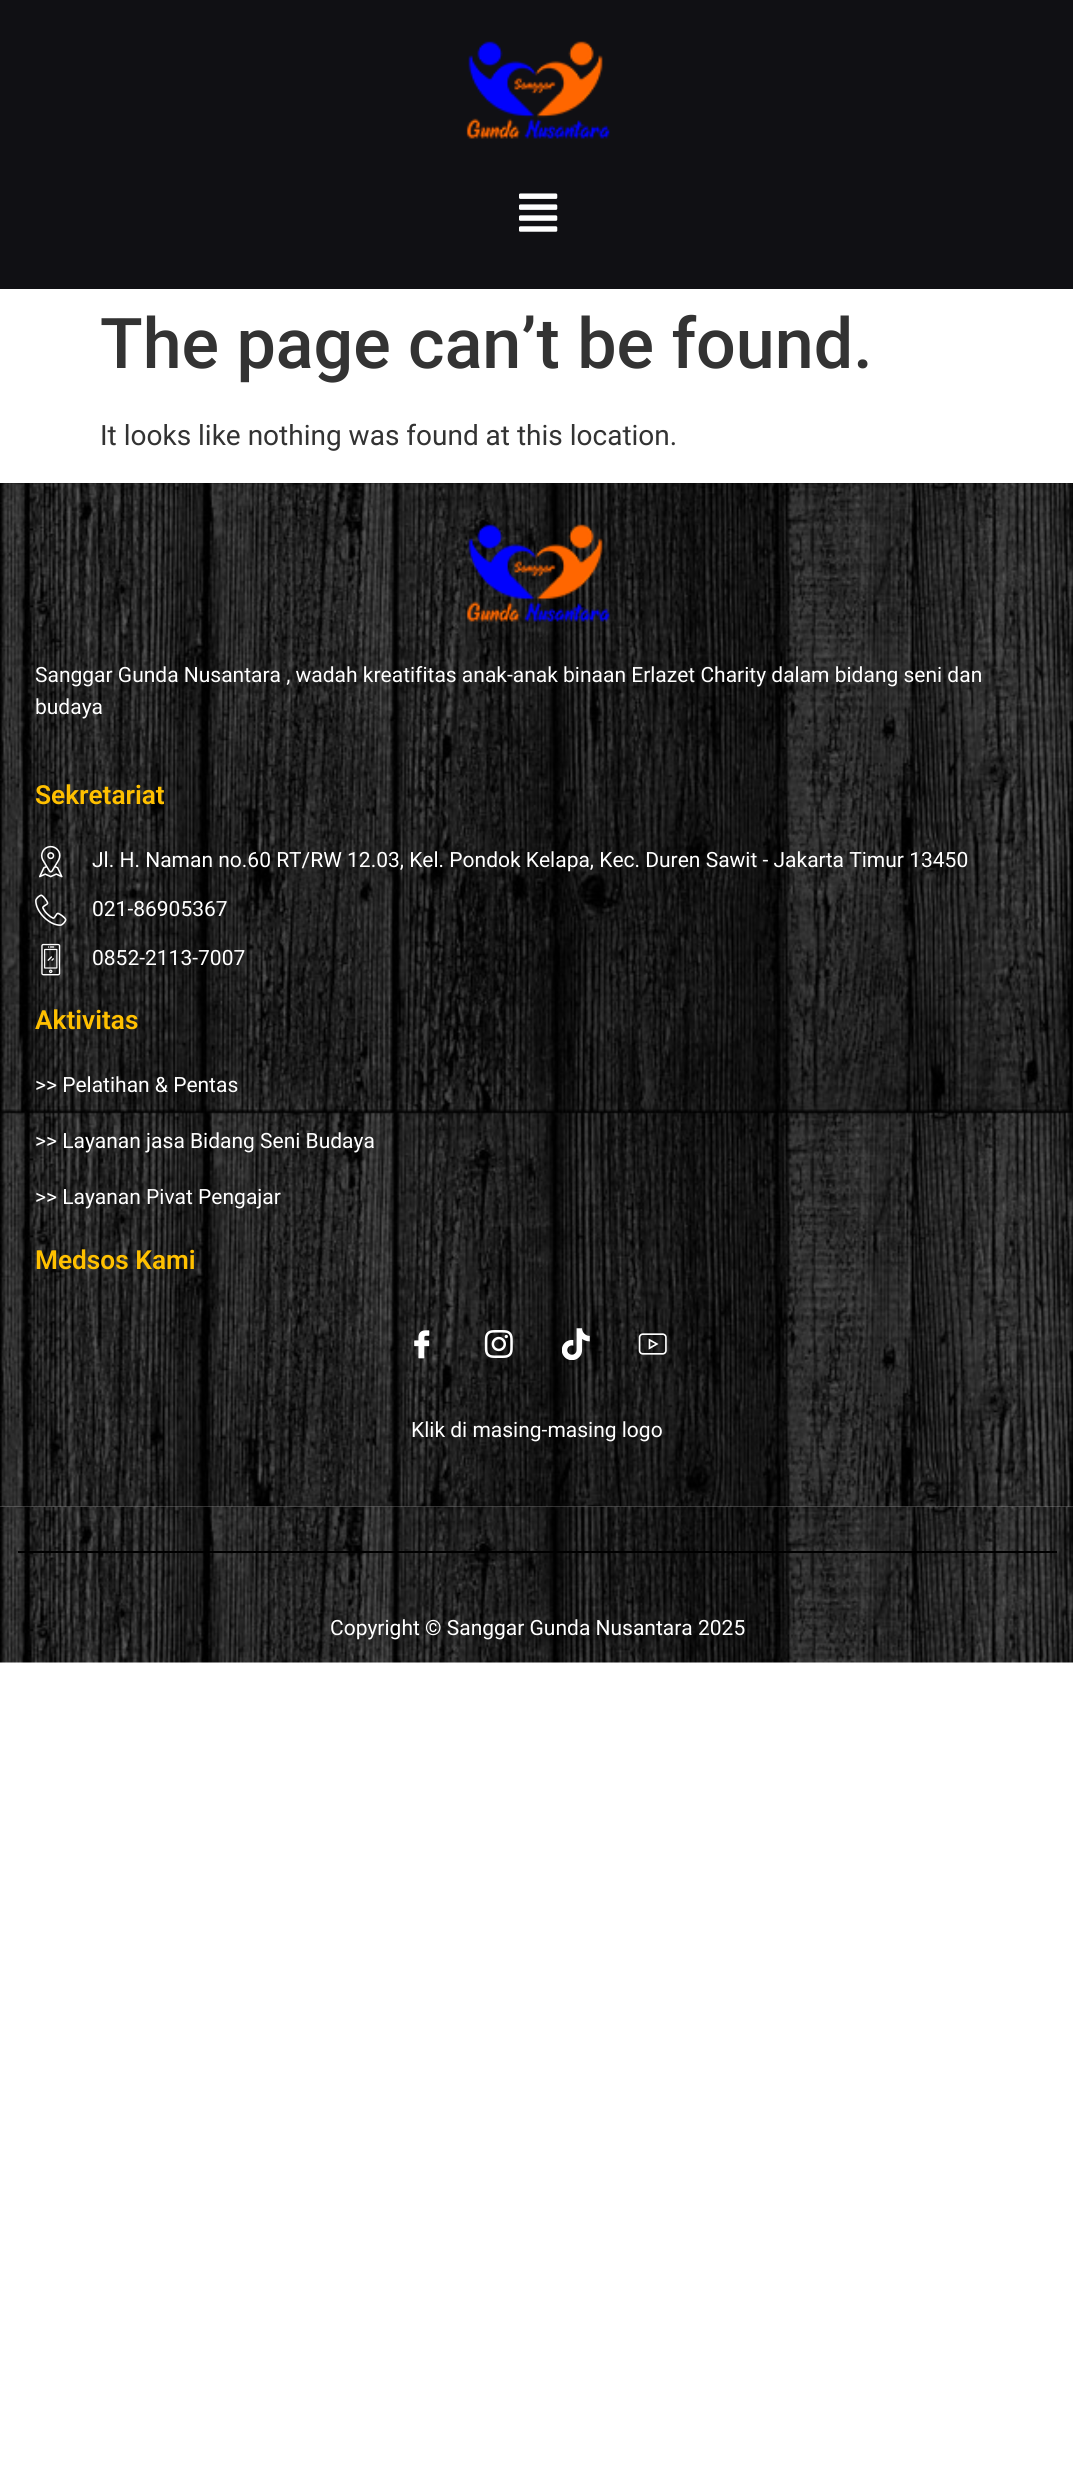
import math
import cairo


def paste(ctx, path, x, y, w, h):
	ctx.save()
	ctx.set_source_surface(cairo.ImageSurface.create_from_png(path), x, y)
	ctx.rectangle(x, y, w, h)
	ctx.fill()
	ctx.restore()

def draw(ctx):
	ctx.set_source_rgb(1, 1, 1)
	ctx.paint()
	ctx.set_source_rgb(0.063, 0.063, 0.082)
	ctx.rectangle(0, 0, 1073, 289)
	ctx.fill()
	paste(ctx, 'media/1.png', 466, 41, 144, 98)
	paste(ctx, 'media/2.png', 519, 193, 39, 39)
	ctx.select_font_face('Roboto Medium')
	ctx.set_font_size(70)
	ctx.set_source_rgb(0.2, 0.2, 0.2)
	ctx.move_to(100, 368)
	ctx.show_text('The page can’t be found.')
	ctx.select_font_face('Roboto')
	ctx.set_font_size(28)
	ctx.move_to(100, 445)
	ctx.show_text('It looks like nothing was found at this location.')
	paste(ctx, 'media/3.png', 0, 483, 1073, 1024)
	paste(ctx, 'media/4.png', 466, 524, 144, 98)
	ctx.set_font_size(21)
	ctx.set_source_rgb(1, 1, 1)
	ctx.move_to(35, 682)
	ctx.show_text('Sanggar Gunda Nusantara , wadah kreatifitas anak-anak binaan Erlazet Charity dalam bidang seni dan')
	ctx.move_to(35, 714)
	ctx.show_text('budaya')
	ctx.select_font_face('Roboto SemiBold')
	ctx.set_font_size(26.25)
	ctx.set_source_rgb(1, 0.753, 0)
	ctx.move_to(35, 804)
	ctx.show_text('Sekretariat')
	paste(ctx, 'media/5.png', 39, 845, 24, 33)
	ctx.select_font_face('Roboto')
	ctx.set_font_size(21)
	ctx.set_source_rgb(1, 1, 1)
	ctx.move_to(92, 867)
	ctx.show_text('Jl. H. Naman no.60 RT/RW 12.03, Kel. Pondok Kelapa, Kec. Duren Sawit - Jakarta Timur 13450')
	paste(ctx, 'media/6.png', 35, 894, 32, 32)
	ctx.move_to(92, 916)
	ctx.show_text('021-86905367')
	paste(ctx, 'media/7.png', 41, 943, 20, 33)
	ctx.move_to(92, 965)
	ctx.show_text('0852-2113-7007')
	ctx.select_font_face('Roboto SemiBold')
	ctx.set_font_size(26.25)
	ctx.set_source_rgb(1, 0.753, 0)
	ctx.move_to(35, 1029)
	ctx.show_text('Aktivitas')
	ctx.select_font_face('Roboto')
	ctx.set_font_size(21)
	ctx.set_source_rgb(1, 1, 1)
	for x, y, s in [
		(35, 1092, '>> Pelatihan & Pentas'),
		(35, 1148, '>> Layanan jasa Bidang Seni Budaya'),
		(35, 1204, '>> Layanan Pivat Pengajar'),
	]:
		ctx.move_to(x, y)
		ctx.show_text(s)
	ctx.select_font_face('Roboto SemiBold')
	ctx.set_font_size(26.25)
	ctx.set_source_rgb(1, 0.753, 0)
	ctx.move_to(35, 1269)
	ctx.show_text('Medsos Kami')
	paste(ctx, 'media/8.png', 414, 1330, 16, 29)
	paste(ctx, 'media/9.png', 484, 1330, 29, 28)
	paste(ctx, 'media/10.png', 562, 1328, 28, 32)
	paste(ctx, 'media/11.png', 638, 1333, 29, 22)
	ctx.select_font_face('Roboto')
	ctx.set_font_size(21)
	ctx.set_source_rgb(1, 1, 1)
	ctx.move_to(411, 1437)
	ctx.show_text('Klik di masing-masing logo')
	paste(ctx, 'media/12.png', 0, 1506, 1073, 157)
	ctx.set_source_rgb(0, 0, 0)
	ctx.rectangle(18, 1551, 1039, 2)
	ctx.fill()
	ctx.set_source_rgb(1, 1, 1)
	ctx.move_to(330, 1635)
	ctx.show_text('Copyright © Sanggar Gunda Nusantara 2025')


surface = cairo.ImageSurface(cairo.FORMAT_RGB24, 1073, 2474)
ctx = cairo.Context(surface)
options = cairo.FontOptions()
options.set_hint_metrics(cairo.HINT_METRICS_OFF)
options.set_hint_style(cairo.HINT_STYLE_NONE)
ctx.set_font_options(options)
ctx.set_miter_limit(4)
draw(ctx)
surface.write_to_png('image.png')
